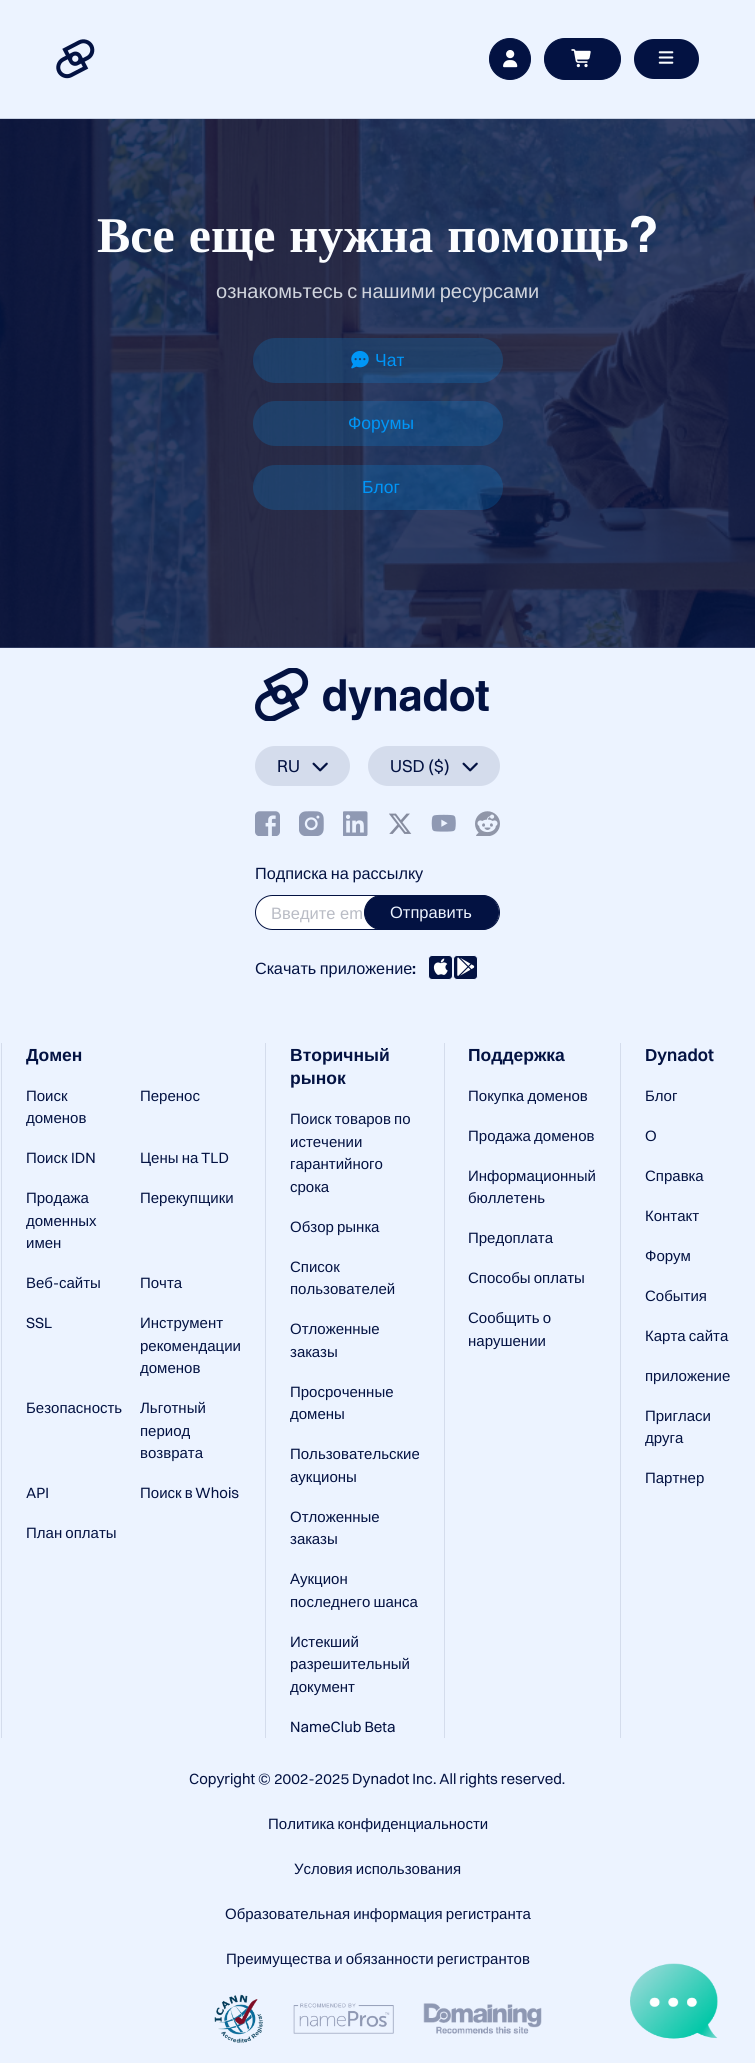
import math
import cairo


def write_spaced(ctx, x, y, s, letter, word):
	ctx.move_to(x, y)
	for ch in s:
		ctx.show_text(ch)
		ctx.rel_move_to(letter + word * (ch == ' '), 0)

def round_path(ctx, x, y, w, h, r):
	ctx.new_sub_path()
	for i, (u, v) in enumerate([(x + w - r, y + h - r), (x + r, y + h - r), (x + r, y + r), (x + w - r, y + r)]):
		ctx.arc(u, v, r, i * math.pi / 2, (i + 1) * math.pi / 2)
	ctx.close_path()

def paste(ctx, path, x, y, w, h):
	ctx.save()
	ctx.set_source_surface(cairo.ImageSurface.create_from_png(path), x, y)
	ctx.rectangle(x, y, w, h)
	ctx.fill()
	ctx.restore()

def draw(ctx):
	ctx.set_source_rgb(0.208, 0.255, 0.408)
	ctx.paint()
	ctx.set_source_rgb(0.922, 0.953, 1)
	ctx.rectangle(0, 0, 755, 118)
	ctx.fill()
	ctx.set_source_rgb(0.784, 0.82, 0.89)
	ctx.rectangle(0, 118, 755, 1)
	ctx.fill()
	paste(ctx, 'media/1.png', 56, 39, 39, 40)
	ctx.set_source_rgb(0.012, 0.071, 0.259)
	ctx.arc(510, 59, 20.5, 0, 2 * math.pi)
	ctx.fill_preserve()
	ctx.set_line_width(1)
	ctx.stroke()
	paste(ctx, 'media/2.png', 503, 50, 15, 18)
	round_path(ctx, 544.5, 38.5, 76, 41, 20.5)
	ctx.fill_preserve()
	ctx.stroke()
	paste(ctx, 'media/3.png', 571, 49, 20, 19)
	round_path(ctx, 634, 39, 65, 40, 20)
	ctx.fill()
	paste(ctx, 'media/4.png', 658, 51, 16, 13)
	paste(ctx, 'media/5.png', 0, 119, 755, 529)
	ctx.select_font_face('Liberation Serif', cairo.FONT_SLANT_NORMAL, cairo.FONT_WEIGHT_BOLD)
	ctx.set_font_size(50)
	ctx.set_source_rgb(0.984, 0.992, 1)
	write_spaced(ctx, 97, 252, 'Все еще нужна помощь', 0, 1.5)
	ctx.select_font_face('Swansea', cairo.FONT_SLANT_NORMAL, cairo.FONT_WEIGHT_BOLD)
	ctx.move_to(628, 252)
	ctx.show_text('?')
	ctx.select_font_face('Liberation Sans')
	ctx.set_font_size(20)
	ctx.set_source_rgb(0.816, 0.831, 0.867)
	write_spaced(ctx, 216, 298, 'ознакомьтесь с нашими ресурсами', 0, -1.5)
	ctx.set_source_rgba(0, 0.588, 0.969, 0.2)
	round_path(ctx, 253, 338, 250, 45, 22.5)
	ctx.fill()
	paste(ctx, 'media/6.png', 351, 351, 18, 18)
	ctx.set_font_size(17.5)
	ctx.set_source_rgb(0, 0.588, 0.969)
	ctx.move_to(375, 366)
	ctx.show_text('Чат')
	ctx.set_source_rgba(0, 0.588, 0.969, 0.2)
	round_path(ctx, 253, 401, 250, 45, 22.5)
	ctx.fill()
	ctx.set_source_rgb(0, 0.588, 0.969)
	ctx.move_to(348, 429)
	ctx.show_text('Форумы')
	ctx.set_source_rgba(0, 0.588, 0.969, 0.2)
	round_path(ctx, 253, 465, 250, 45, 22.5)
	ctx.fill()
	ctx.set_source_rgb(0, 0.588, 0.969)
	ctx.move_to(362, 493)
	ctx.show_text('Блог')
	ctx.set_source_rgb(0.922, 0.953, 1)
	ctx.rectangle(0, 648, 755, 1415)
	ctx.fill()
	paste(ctx, 'media/7.png', 255, 668, 234, 53)
	ctx.set_source_rgb(0.831, 0.863, 0.925)
	round_path(ctx, 255, 746, 95, 40, 20)
	ctx.fill()
	ctx.select_font_face('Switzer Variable')
	ctx.set_source_rgb(0.012, 0.071, 0.259)
	ctx.move_to(277, 772)
	ctx.show_text('RU')
	paste(ctx, 'media/8.png', 312, 762, 16, 10)
	ctx.set_source_rgb(0.831, 0.863, 0.925)
	round_path(ctx, 368, 746, 132, 40, 20)
	ctx.fill()
	ctx.set_source_rgb(0.012, 0.071, 0.259)
	ctx.move_to(390, 772)
	ctx.show_text('USD ($)')
	paste(ctx, 'media/8.png', 462, 762, 16, 10)
	paste(ctx, 'media/9.png', 255, 811, 25, 25)
	paste(ctx, 'media/10.png', 299, 811, 25, 25)
	paste(ctx, 'media/11.png', 343, 811, 25, 25)
	paste(ctx, 'media/12.png', 389, 813, 23, 21)
	paste(ctx, 'media/13.png', 431, 814, 25, 18)
	paste(ctx, 'media/14.png', 475, 811, 25, 25)
	ctx.select_font_face('Liberation Sans')
	ctx.set_font_size(16.25)
	write_spaced(ctx, 255, 879, 'Подписка на рассылку', 0, -1)
	ctx.set_source_rgb(1, 1, 1)
	round_path(ctx, 255.5, 895.5, 244, 34, 17)
	ctx.fill_preserve()
	ctx.set_source_rgb(0.012, 0.071, 0.259)
	ctx.stroke()
	ctx.set_font_size(16.5)
	ctx.set_source_rgb(0.725, 0.737, 0.773)
	ctx.move_to(271, 919)
	ctx.show_text('Введите em')
	ctx.set_source_rgb(0.012, 0.071, 0.259)
	round_path(ctx, 364.5, 895.5, 134, 34, 17)
	ctx.fill_preserve()
	ctx.stroke()
	ctx.set_source_rgb(0.922, 0.953, 1)
	ctx.move_to(390, 918)
	ctx.show_text('Отправить')
	ctx.set_font_size(16.25)
	ctx.set_source_rgb(0.012, 0.071, 0.259)
	write_spaced(ctx, 255, 974, 'Скачать приложение', 0, -1)
	ctx.select_font_face('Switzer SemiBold')
	ctx.move_to(412, 974)
	ctx.show_text(':')
	round_path(ctx, 428.5, 955.5, 24, 24, 3.5)
	ctx.fill_preserve()
	ctx.set_source_rgb(0.922, 0.953, 1)
	ctx.stroke()
	paste(ctx, 'media/15.png', 433, 958, 15, 17)
	ctx.set_source_rgb(0.012, 0.071, 0.259)
	round_path(ctx, 453.5, 955.5, 24, 24, 3.5)
	ctx.fill_preserve()
	ctx.set_source_rgb(0.922, 0.953, 1)
	ctx.stroke()
	paste(ctx, 'media/16.png', 457, 957, 18, 19)
	ctx.set_source_rgb(0.831, 0.863, 0.925)
	ctx.rectangle(1, 1043, 1, 695)
	ctx.fill()
	ctx.select_font_face('Liberation Sans', cairo.FONT_SLANT_NORMAL, cairo.FONT_WEIGHT_BOLD)
	ctx.set_font_size(17.5)
	ctx.set_source_rgb(0.012, 0.071, 0.259)
	ctx.move_to(26, 1061)
	ctx.show_text('Домен')
	ctx.select_font_face('Liberation Sans')
	ctx.set_font_size(15)
	for x, y, s in [
		(26, 1101, 'Поиск'),
		(26, 1123, 'доменов'),
		(140, 1101, 'Перенос'),
		(26, 1163, 'Поиск'),
	]:
		ctx.move_to(x, y)
		ctx.show_text(s)
	ctx.select_font_face('Switzer Variable')
	ctx.move_to(71, 1163)
	ctx.show_text('IDN')
	ctx.select_font_face('Liberation Sans')
	write_spaced(ctx, 140, 1163, 'Цены на', 0, -1)
	ctx.select_font_face('Switzer Variable')
	ctx.move_to(201, 1163)
	ctx.show_text('TLD')
	ctx.select_font_face('Liberation Sans')
	for x, y, s in [
		(26, 1203, 'Продажа'),
		(26, 1226, 'доменных'),
		(26, 1248, 'имен'),
		(140, 1203, 'Перекупщики'),
		(26, 1288, 'Веб'),
	]:
		ctx.move_to(x, y)
		ctx.show_text(s)
	ctx.select_font_face('Switzer Variable')
	ctx.move_to(53, 1288)
	ctx.show_text('-')
	ctx.select_font_face('Liberation Sans')
	ctx.move_to(59, 1288)
	ctx.show_text('сайты')
	ctx.move_to(140, 1288)
	ctx.show_text('Почта')
	ctx.select_font_face('Switzer Variable')
	ctx.move_to(26, 1328)
	ctx.show_text('SSL')
	ctx.select_font_face('Liberation Sans')
	for x, y, s in [
		(140, 1328, 'Инструмент'),
		(140, 1351, 'рекомендации'),
		(140, 1373, 'доменов'),
		(26, 1413, 'Безопасность'),
		(140, 1413, 'Льготный'),
		(140, 1436, 'период'),
		(140, 1458, 'возврата'),
	]:
		ctx.move_to(x, y)
		ctx.show_text(s)
	ctx.select_font_face('Switzer Variable')
	ctx.move_to(26, 1498)
	ctx.show_text('API')
	ctx.select_font_face('Liberation Sans')
	write_spaced(ctx, 140, 1498, 'Поиск в', 0, -1)
	ctx.select_font_face('Switzer Variable')
	ctx.move_to(195, 1498)
	ctx.show_text('Whois')
	ctx.select_font_face('Liberation Sans')
	write_spaced(ctx, 26, 1538, 'План оплаты', 0, -1)
	ctx.set_source_rgb(0.831, 0.863, 0.925)
	ctx.rectangle(265, 1043, 1, 695)
	ctx.fill()
	ctx.select_font_face('Liberation Sans', cairo.FONT_SLANT_NORMAL, cairo.FONT_WEIGHT_BOLD)
	ctx.set_font_size(17.5)
	ctx.set_source_rgb(0.012, 0.071, 0.259)
	ctx.move_to(290, 1061)
	ctx.show_text('Вторичный')
	ctx.move_to(290, 1084)
	ctx.show_text('рынок')
	ctx.select_font_face('Liberation Sans')
	ctx.set_font_size(15)
	write_spaced(ctx, 290, 1124, 'Поиск товаров по', 0, -1)
	for x, y, s in [
		(290, 1147, 'истечении'),
		(290, 1169, 'гарантийного'),
		(290, 1192, 'срока'),
	]:
		ctx.move_to(x, y)
		ctx.show_text(s)
	write_spaced(ctx, 290, 1232, 'Обзор рынка', 0, -1)
	for x, y, s in [
		(290, 1272, 'Список'),
		(290, 1294, 'пользователей'),
		(290, 1334, 'Отложенные'),
		(290, 1357, 'заказы'),
		(290, 1397, 'Просроченные'),
		(290, 1419, 'домены'),
		(290, 1459, 'Пользовательские'),
		(290, 1482, 'аукционы'),
		(290, 1522, 'Отложенные'),
		(290, 1544, 'заказы'),
		(290, 1584, 'Аукцион'),
	]:
		ctx.move_to(x, y)
		ctx.show_text(s)
	write_spaced(ctx, 290, 1607, 'последнего шанса', 0, -1)
	for x, y, s in [
		(290, 1647, 'Истекший'),
		(290, 1669, 'разрешительный'),
		(290, 1692, 'документ'),
	]:
		ctx.move_to(x, y)
		ctx.show_text(s)
	ctx.select_font_face('Switzer Variable')
	ctx.move_to(290, 1732)
	ctx.show_text('NameClub Beta')
	ctx.set_source_rgb(0.831, 0.863, 0.925)
	ctx.rectangle(444, 1043, 1, 695)
	ctx.fill()
	ctx.select_font_face('Liberation Sans', cairo.FONT_SLANT_NORMAL, cairo.FONT_WEIGHT_BOLD)
	ctx.set_font_size(17.5)
	ctx.set_source_rgb(0.012, 0.071, 0.259)
	ctx.move_to(468, 1061)
	ctx.show_text('Поддержка')
	ctx.select_font_face('Liberation Sans')
	ctx.set_font_size(15)
	write_spaced(ctx, 468, 1101, 'Покупка доменов', 0, -1)
	write_spaced(ctx, 468, 1141, 'Продажа доменов', 0, -1)
	for x, y, s in [
		(468, 1181, 'Информационный'),
		(468, 1203, 'бюллетень'),
		(468, 1243, 'Предоплата'),
	]:
		ctx.move_to(x, y)
		ctx.show_text(s)
	write_spaced(ctx, 468, 1283, 'Способы оплаты', 0, -1)
	write_spaced(ctx, 468, 1323, 'Сообщить о', 0, -1)
	ctx.move_to(468, 1346)
	ctx.show_text('нарушении')
	ctx.set_source_rgb(0.831, 0.863, 0.925)
	ctx.rectangle(620, 1043, 1, 695)
	ctx.fill()
	ctx.select_font_face('Switzer SemiBold')
	ctx.set_font_size(17.5)
	ctx.set_source_rgb(0.012, 0.071, 0.259)
	ctx.move_to(645, 1061)
	ctx.show_text('Dynadot')
	ctx.select_font_face('Liberation Sans')
	ctx.set_font_size(15)
	for x, y, s in [
		(645, 1101, 'Блог'),
		(645, 1141, 'О'),
		(645, 1181, 'Справка'),
		(645, 1221, 'Контакт'),
		(645, 1261, 'Форум'),
		(645, 1301, 'События'),
	]:
		ctx.move_to(x, y)
		ctx.show_text(s)
	write_spaced(ctx, 645, 1341, 'Карта сайта', 0, -1)
	for x, y, s in [
		(645, 1381, 'приложение'),
		(645, 1421, 'Пригласи'),
		(645, 1443, 'друга'),
		(645, 1483, 'Партнер'),
	]:
		ctx.move_to(x, y)
		ctx.show_text(s)
	ctx.select_font_face('Switzer Variable')
	ctx.move_to(189, 1784)
	ctx.show_text('Copyright © 2002-2025 Dynadot Inc. All rights reserved.')
	ctx.select_font_face('Liberation Sans')
	for x, y, s in [
		(268, 1829, 'Политика конфиденциальности'),
		(294, 1874, 'Условия использования'),
		(225, 1919, 'Образовательная информация регистранта'),
		(226, 1964, 'Преимущества и обязанности регистрантов'),
	]:
		write_spaced(ctx, x, y, s, 0, -1)
	paste(ctx, 'media/17.png', 214, 1994, 49, 49)
	paste(ctx, 'media/18.png', 293, 2003, 101, 31)
	paste(ctx, 'media/19.png', 423, 2003, 119, 31)
	paste(ctx, 'media/20.png', 630, 1963, 88, 76)


surface = cairo.ImageSurface(cairo.FORMAT_RGB24, 755, 2063)
ctx = cairo.Context(surface)
options = cairo.FontOptions()
options.set_hint_metrics(cairo.HINT_METRICS_OFF)
options.set_hint_style(cairo.HINT_STYLE_NONE)
ctx.set_font_options(options)
ctx.set_miter_limit(4)
draw(ctx)
surface.write_to_png('image.png')
